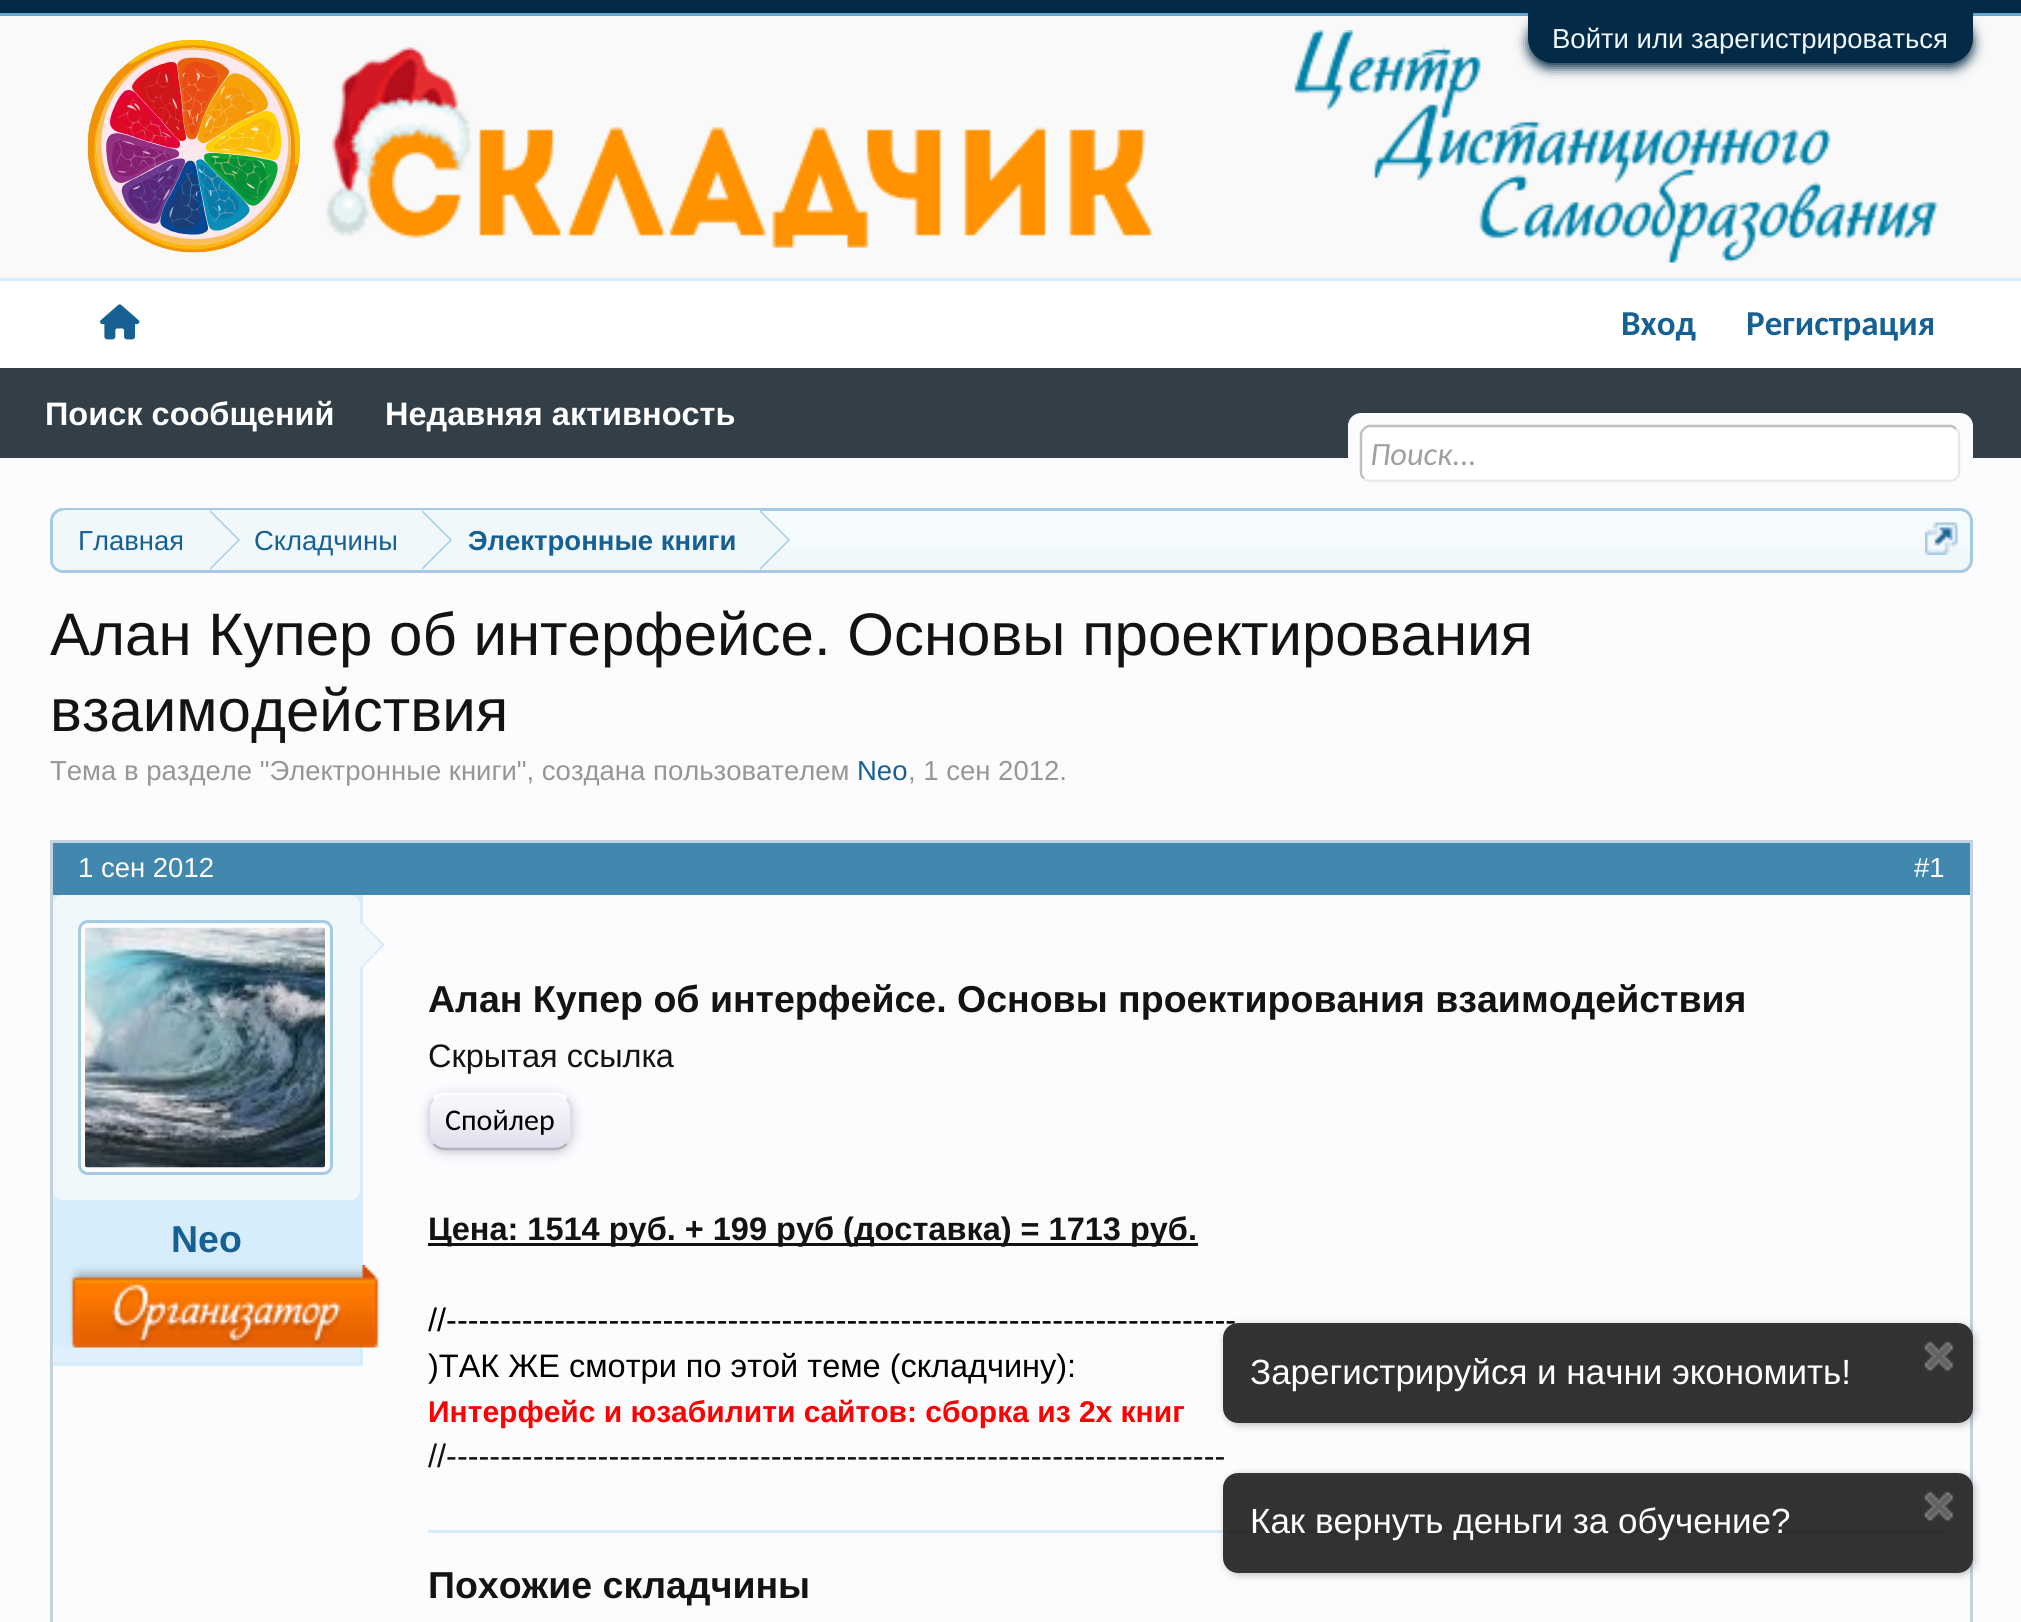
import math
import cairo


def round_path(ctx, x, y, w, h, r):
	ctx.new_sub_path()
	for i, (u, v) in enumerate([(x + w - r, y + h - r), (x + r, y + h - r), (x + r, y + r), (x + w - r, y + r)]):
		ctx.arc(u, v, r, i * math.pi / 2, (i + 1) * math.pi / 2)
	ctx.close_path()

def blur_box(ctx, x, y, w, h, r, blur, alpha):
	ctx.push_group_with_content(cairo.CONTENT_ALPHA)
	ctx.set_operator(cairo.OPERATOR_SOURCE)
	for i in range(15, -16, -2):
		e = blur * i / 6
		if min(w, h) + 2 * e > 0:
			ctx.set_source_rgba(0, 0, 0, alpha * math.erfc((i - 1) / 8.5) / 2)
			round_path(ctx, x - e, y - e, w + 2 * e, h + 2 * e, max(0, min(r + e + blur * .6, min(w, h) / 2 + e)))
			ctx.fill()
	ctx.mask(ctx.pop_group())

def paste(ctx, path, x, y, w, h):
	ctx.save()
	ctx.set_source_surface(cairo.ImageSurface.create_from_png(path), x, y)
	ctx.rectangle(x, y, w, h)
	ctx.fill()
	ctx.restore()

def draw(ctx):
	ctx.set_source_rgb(0.976, 0.976, 0.976)
	ctx.paint()
	ctx.set_source_rgb(0.012, 0.165, 0.275)
	ctx.rectangle(0, 0, 2021, 13)
	ctx.fill()
	ctx.set_source_rgb(0.396, 0.647, 0.82)
	ctx.rectangle(0, 13, 2021, 3)
	ctx.fill()
	paste(ctx, 'media/3.png', 1294, 30, 645, 233)
	ctx.set_source_rgb(0.012, 0.165, 0.275)
	blur_box(ctx, 1528, 18, 445, 50, 25, 6, 1)
	ctx.set_source_rgb(0.012, 0.165, 0.275)
	ctx.new_path()
	ctx.move_to(1528, 13)
	ctx.line_to(1973, 13)
	ctx.line_to(1973, 38)
	ctx.curve_to(1973, 52, 1962, 63, 1948, 63)
	ctx.line_to(1553, 63)
	ctx.curve_to(1539, 63, 1528, 52, 1528, 38)
	ctx.close_path()
	ctx.fill()
	ctx.select_font_face('Liberation Sans')
	ctx.set_font_size(27.5)
	ctx.set_source_rgb(0.941, 0.969, 0.988)
	ctx.move_to(1552, 48)
	ctx.show_text('Войти или зарегистрироваться')
	paste(ctx, 'media/1.png', 88, 40, 212, 213)
	paste(ctx, 'media/2.png', 325, 47, 828, 201)
	ctx.set_source_rgb(0.196, 0.247, 0.282)
	ctx.rectangle(0, 368, 2021, 90)
	ctx.fill()
	ctx.set_source_rgb(1, 1, 1)
	ctx.rectangle(0, 281, 2021, 87)
	ctx.fill()
	ctx.set_source_rgb(0.843, 0.929, 0.988)
	ctx.rectangle(0, 278, 2021, 3)
	ctx.fill()
	ctx.select_font_face('Carlito', cairo.FONT_SLANT_NORMAL, cairo.FONT_WEIGHT_BOLD)
	ctx.set_font_size(35)
	ctx.set_source_rgb(0.09, 0.376, 0.576)
	ctx.move_to(1621, 335)
	ctx.show_text('Вход')
	ctx.move_to(1746, 335)
	ctx.show_text('Регистрация')
	paste(ctx, 'media/4.png', 100, 304, 40, 36)
	ctx.select_font_face('Liberation Sans', cairo.FONT_SLANT_NORMAL, cairo.FONT_WEIGHT_BOLD)
	ctx.set_font_size(32.5)
	ctx.set_source_rgb(1, 1, 1)
	ctx.move_to(45, 425)
	ctx.show_text('Поиск сообщений')
	ctx.move_to(385, 425)
	ctx.show_text('Недавняя активность')
	ctx.set_source_rgb(0.988, 0.988, 1)
	ctx.rectangle(0, 458, 2021, 1164)
	ctx.fill()
	round_path(ctx, 1348, 413, 625, 70, 13)
	ctx.fill()
	ctx.rectangle(1348, 425, 625, 1)
	ctx.fill()
	ctx.set_source_rgb(1, 1, 1)
	round_path(ctx, 1360, 425, 600, 58, 10)
	ctx.fill()
	ctx.new_path()
	ctx.move_to(1956, 429)
	ctx.curve_to(1958, 430.5, 1959, 432.5, 1959, 435)
	ctx.line_to(1959, 472.5)
	ctx.curve_to(1959, 475, 1958, 477, 1956, 478.5)
	ctx.curve_to(1954.5, 480.5, 1952.5, 481, 1950, 481)
	ctx.line_to(1370, 481)
	ctx.curve_to(1367.5, 481, 1365.5, 480.5, 1364, 478.5)
	ctx.set_source_rgb(0.914, 0.914, 0.914)
	ctx.set_line_width(2.5)
	ctx.stroke()
	ctx.new_path()
	ctx.move_to(1364, 478.5)
	ctx.curve_to(1362, 477, 1361, 475, 1361, 472.5)
	ctx.line_to(1361, 435)
	ctx.curve_to(1361, 432.5, 1362, 430.5, 1364, 429)
	ctx.curve_to(1365.5, 427, 1367.5, 426, 1370, 426)
	ctx.line_to(1950, 426)
	ctx.curve_to(1952.5, 426, 1954.5, 427, 1956, 429)
	ctx.set_source_rgb(0.753, 0.753, 0.753)
	ctx.stroke()
	ctx.select_font_face('Carlito', cairo.FONT_SLANT_ITALIC)
	ctx.set_source_rgb(0.627, 0.627, 0.627)
	ctx.move_to(1370, 465)
	ctx.show_text('Поиск...')
	ctx.set_source_rgb(0.941, 0.969, 0.988)
	round_path(ctx, 50, 508, 1923, 65, 13)
	ctx.fill()
	paste(ctx, 'media/5.png', 50, 510, 1922, 39)
	round_path(ctx, 51.5, 509.5, 1920, 62, 11.5)
	ctx.set_source_rgb(0.647, 0.792, 0.894)
	ctx.set_line_width(3)
	ctx.stroke()
	ctx.save()
	round_path(ctx, 53, 510, 1917, 60, 10)
	ctx.clip()
	ctx.set_source_rgb(0.941, 0.969, 0.988)
	ctx.new_path()
	ctx.move_to(66, 510)
	ctx.line_to(210, 510)
	ctx.line_to(210, 573)
	ctx.line_to(66, 573)
	ctx.curve_to(59, 573, 53, 567, 53, 560)
	ctx.line_to(53, 523)
	ctx.curve_to(53, 516, 59, 510, 66, 510)
	ctx.close_path()
	ctx.fill()
	ctx.restore()
	ctx.select_font_face('Liberation Sans')
	ctx.set_font_size(27.5)
	ctx.set_source_rgb(0.09, 0.376, 0.576)
	ctx.move_to(78, 550)
	ctx.show_text('Главная')
	ctx.set_source_rgb(0.941, 0.969, 0.988)
	ctx.rectangle(210, 510, 550, 39)
	ctx.fill()
	ctx.set_source_rgb(0.647, 0.792, 0.894)
	ctx.new_path()
	ctx.move_to(210, 570)
	ctx.line_to(210, 510)
	ctx.line_to(240, 540)
	ctx.close_path()
	ctx.fill()
	ctx.set_source_rgb(0.941, 0.969, 0.988)
	ctx.new_path()
	ctx.move_to(208, 570)
	ctx.line_to(208, 510)
	ctx.line_to(238, 540)
	ctx.close_path()
	ctx.fill()
	ctx.set_source_rgb(0.09, 0.376, 0.576)
	ctx.move_to(254, 550)
	ctx.show_text('Складчины')
	ctx.set_source_rgb(0.647, 0.792, 0.894)
	ctx.new_path()
	ctx.move_to(422, 570)
	ctx.line_to(422, 510)
	ctx.line_to(452, 540)
	ctx.close_path()
	ctx.fill()
	ctx.set_source_rgb(0.941, 0.969, 0.988)
	ctx.new_path()
	ctx.move_to(420, 570)
	ctx.line_to(420, 510)
	ctx.line_to(450, 540)
	ctx.close_path()
	ctx.fill()
	ctx.select_font_face('Liberation Sans', cairo.FONT_SLANT_NORMAL, cairo.FONT_WEIGHT_BOLD)
	ctx.set_source_rgb(0.09, 0.376, 0.576)
	ctx.move_to(468, 550)
	ctx.show_text('Электронные книги')
	ctx.set_source_rgb(0.647, 0.792, 0.894)
	ctx.new_path()
	ctx.move_to(760, 570)
	ctx.line_to(760, 510)
	ctx.line_to(790, 540)
	ctx.close_path()
	ctx.fill()
	ctx.set_source_rgb(0.941, 0.969, 0.988)
	ctx.new_path()
	ctx.move_to(758, 570)
	ctx.line_to(758, 510)
	ctx.line_to(788, 540)
	ctx.close_path()
	ctx.fill()
	paste(ctx, 'media/6.png', 1925, 522, 33, 33)
	ctx.select_font_face('Liberation Sans')
	ctx.set_font_size(60)
	ctx.set_source_rgb(0.078, 0.078, 0.078)
	ctx.move_to(50, 655)
	ctx.show_text('Алан Купер об интерфейсе. Основы проектирования')
	ctx.move_to(50, 731)
	ctx.show_text('взаимодействия')
	ctx.set_font_size(27.5)
	ctx.set_source_rgb(0.588, 0.588, 0.588)
	ctx.move_to(50, 780)
	ctx.show_text('Тема в разделе "Электронные книги", создана пользователем')
	ctx.set_source_rgb(0.09, 0.376, 0.576)
	ctx.move_to(857, 780)
	ctx.show_text('Neo')
	ctx.set_source_rgb(0.588, 0.588, 0.588)
	ctx.move_to(908, 780)
	ctx.show_text(', 1 сен 2012.')
	ctx.rectangle(51.5, 841.5, 1920, 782)
	ctx.set_source_rgb(0.761, 0.824, 0.875)
	ctx.stroke()
	ctx.set_source_rgb(0.255, 0.529, 0.682)
	ctx.rectangle(53, 843, 1917, 52)
	ctx.fill()
	ctx.set_source_rgb(1, 1, 1)
	ctx.move_to(78, 877)
	ctx.show_text('1 сен 2012')
	ctx.move_to(1914, 877)
	ctx.show_text('#1')
	ctx.set_source_rgb(0.843, 0.929, 0.988)
	ctx.rectangle(53, 895, 307, 468)
	ctx.fill()
	paste(ctx, 'media/7.png', 52, 1345, 308, 18)
	ctx.rectangle(360, 895, 3, 470)
	ctx.fill()
	ctx.rectangle(53, 1363, 310, 3)
	ctx.fill()
	ctx.set_source_rgb(0.941, 0.969, 0.988)
	round_path(ctx, 53, 895, 307, 305, 10)
	ctx.fill()
	ctx.set_source_rgb(0.988, 0.988, 1)
	round_path(ctx, 79.5, 921.5, 252, 252, 8.5)
	ctx.fill_preserve()
	ctx.set_source_rgb(0.647, 0.792, 0.894)
	ctx.stroke()
	paste(ctx, 'media/8.png', 85, 927, 240, 241)
	ctx.set_source_rgb(0.843, 0.929, 0.988)
	ctx.new_path()
	ctx.move_to(360, 970)
	ctx.line_to(360, 920)
	ctx.line_to(385, 945)
	ctx.close_path()
	ctx.fill()
	ctx.set_source_rgb(0.941, 0.969, 0.988)
	ctx.new_path()
	ctx.move_to(358, 970)
	ctx.line_to(358, 920)
	ctx.line_to(382, 945)
	ctx.close_path()
	ctx.fill()
	ctx.select_font_face('Liberation Sans', cairo.FONT_SLANT_NORMAL, cairo.FONT_WEIGHT_BOLD)
	ctx.set_font_size(37.5)
	ctx.set_source_rgb(0.09, 0.376, 0.576)
	ctx.move_to(171, 1252)
	ctx.show_text('Neo')
	paste(ctx, 'media/9.png', 69, 1265, 312, 83)
	ctx.set_source_rgb(0.078, 0.078, 0.078)
	ctx.move_to(428, 1012)
	ctx.show_text('Алан Купер об интерфейсе. Основы проектирования взаимодействия')
	ctx.select_font_face('Liberation Sans')
	ctx.set_font_size(32.5)
	ctx.move_to(428, 1067)
	ctx.show_text('Скрытая ссылка')
	ctx.set_source_rgb(0.784, 0.784, 0.824)
	blur_box(ctx, 428, 1095, 145, 58, 18, 5, 1)
	ctx.set_source_rgb(0.863, 0.863, 0.922)
	round_path(ctx, 428, 1093, 145, 57, 18)
	ctx.fill()
	paste(ctx, 'media/10.png', 428, 1095, 145, 52)
	ctx.new_path()
	ctx.move_to(433.5, 1098.5)
	ctx.curve_to(436.5, 1095.5, 440.5, 1094, 445, 1094)
	ctx.line_to(555, 1094)
	ctx.curve_to(559.5, 1094, 563.5, 1095.5, 566.5, 1098.5)
	ctx.set_source_rgb(1, 1, 1)
	ctx.set_line_width(2.5)
	ctx.stroke()
	ctx.new_path()
	ctx.move_to(566.5, 1098.5)
	ctx.curve_to(572.5, 1104.5, 571, 1113.5, 571, 1121)
	ctx.curve_to(571, 1129, 572.5, 1138, 566.5, 1144)
	ctx.set_source_rgb(0.867, 0.867, 0.922)
	ctx.stroke()
	ctx.new_path()
	ctx.move_to(566.5, 1144)
	ctx.curve_to(563.5, 1147, 559.5, 1149, 555, 1149)
	ctx.line_to(445, 1149)
	ctx.curve_to(440.5, 1149, 436.5, 1147, 433.5, 1144)
	ctx.set_source_rgb(0.702, 0.702, 0.741)
	ctx.stroke()
	ctx.new_path()
	ctx.move_to(433.5, 1144)
	ctx.curve_to(427.5, 1138, 429, 1129, 429, 1121)
	ctx.curve_to(429, 1113.5, 427.5, 1104.5, 433.5, 1098.5)
	ctx.set_source_rgb(0.867, 0.867, 0.922)
	ctx.stroke()
	ctx.select_font_face('Carlito')
	ctx.set_font_size(30)
	ctx.set_source_rgb(0, 0, 0)
	ctx.move_to(445, 1130)
	ctx.show_text('Спойлер')
	ctx.set_source_rgb(0.078, 0.078, 0.078)
	ctx.rectangle(428, 1243, 770, 3)
	ctx.fill()
	ctx.select_font_face('Liberation Sans', cairo.FONT_SLANT_NORMAL, cairo.FONT_WEIGHT_BOLD)
	ctx.set_font_size(32.5)
	ctx.move_to(428, 1240)
	ctx.show_text('Цена: 1514 руб. + 199 руб (доставка) = 1713 руб.')
	ctx.select_font_face('Liberation Sans')
	ctx.set_source_rgb(0, 0, 0)
	ctx.move_to(428, 1331)
	ctx.show_text('//-------------------------------------------------------------------------')
	ctx.move_to(428, 1377)
	ctx.show_text(')ТАК ЖЕ смотри по этой теме (складчину):')
	ctx.select_font_face('Liberation Sans', cairo.FONT_SLANT_NORMAL, cairo.FONT_WEIGHT_BOLD)
	ctx.set_font_size(30)
	ctx.set_source_rgb(1, 0, 0)
	ctx.move_to(428, 1422)
	ctx.show_text('Интерфейс и юзабилити сайтов: сборка из 2х книг')
	ctx.select_font_face('Liberation Sans')
	ctx.set_font_size(32.5)
	ctx.set_source_rgb(0.078, 0.078, 0.078)
	ctx.move_to(428, 1467)
	ctx.show_text('//------------------------------------------------------------------------')
	ctx.set_source_rgb(0.843, 0.929, 0.988)
	ctx.rectangle(428, 1530, 1517, 3)
	ctx.fill()
	ctx.select_font_face('Liberation Sans', cairo.FONT_SLANT_NORMAL, cairo.FONT_WEIGHT_BOLD)
	ctx.set_font_size(37.5)
	ctx.set_source_rgb(0.078, 0.078, 0.078)
	ctx.move_to(428, 1598)
	ctx.show_text('Похожие складчины')
	ctx.save()
	ctx.set_fill_rule(cairo.FILL_RULE_EVEN_ODD)
	ctx.new_path()
	ctx.move_to(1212, 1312)
	ctx.line_to(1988, 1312)
	ctx.line_to(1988, 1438)
	ctx.line_to(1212, 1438)
	ctx.close_path()
	ctx.move_to(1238, 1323)
	ctx.line_to(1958, 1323)
	ctx.curve_to(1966.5, 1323, 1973, 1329.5, 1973, 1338)
	ctx.line_to(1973, 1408)
	ctx.curve_to(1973, 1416.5, 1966.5, 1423, 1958, 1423)
	ctx.line_to(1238, 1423)
	ctx.curve_to(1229.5, 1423, 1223, 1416.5, 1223, 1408)
	ctx.line_to(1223, 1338)
	ctx.curve_to(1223, 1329.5, 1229.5, 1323, 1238, 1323)
	ctx.close_path()
	ctx.clip()
	ctx.set_source_rgb(0, 0, 0)
	blur_box(ctx, 1225, 1325, 750, 100, 15, 4, 0.25)
	ctx.restore()
	ctx.set_source_rgba(0, 0, 0, 0.8)
	round_path(ctx, 1224.5, 1324.5, 747, 97, 13.5)
	ctx.fill_preserve()
	ctx.set_source_rgb(0.2, 0.2, 0.2)
	ctx.set_line_width(3)
	ctx.stroke()
	ctx.select_font_face('Liberation Sans')
	ctx.set_font_size(35)
	ctx.set_source_rgb(1, 1, 1)
	ctx.move_to(1250, 1384)
	ctx.show_text('Зарегистрируйся и начни экономить!')
	paste(ctx, 'media/11.png', 1924, 1341, 30, 31)
	ctx.save()
	ctx.set_fill_rule(cairo.FILL_RULE_EVEN_ODD)
	ctx.new_path()
	ctx.move_to(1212, 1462)
	ctx.line_to(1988, 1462)
	ctx.line_to(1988, 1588)
	ctx.line_to(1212, 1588)
	ctx.close_path()
	ctx.move_to(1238, 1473)
	ctx.line_to(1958, 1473)
	ctx.curve_to(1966.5, 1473, 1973, 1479.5, 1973, 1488)
	ctx.line_to(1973, 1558)
	ctx.curve_to(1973, 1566.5, 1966.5, 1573, 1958, 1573)
	ctx.line_to(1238, 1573)
	ctx.curve_to(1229.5, 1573, 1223, 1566.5, 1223, 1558)
	ctx.line_to(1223, 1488)
	ctx.curve_to(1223, 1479.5, 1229.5, 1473, 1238, 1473)
	ctx.close_path()
	ctx.clip()
	ctx.set_source_rgb(0, 0, 0)
	blur_box(ctx, 1225, 1475, 750, 100, 15, 4, 0.25)
	ctx.restore()
	ctx.set_source_rgba(0, 0, 0, 0.8)
	round_path(ctx, 1224.5, 1474.5, 747, 97, 13.5)
	ctx.fill_preserve()
	ctx.set_source_rgb(0.2, 0.2, 0.2)
	ctx.stroke()
	ctx.set_source_rgb(1, 1, 1)
	ctx.move_to(1250, 1533)
	ctx.show_text('Как вернуть деньги за обучение?')
	paste(ctx, 'media/11.png', 1924, 1491, 30, 31)


surface = cairo.ImageSurface(cairo.FORMAT_RGB24, 2021, 1622)
ctx = cairo.Context(surface)
options = cairo.FontOptions()
options.set_hint_metrics(cairo.HINT_METRICS_OFF)
options.set_hint_style(cairo.HINT_STYLE_NONE)
ctx.set_font_options(options)
ctx.set_miter_limit(4)
draw(ctx)
surface.write_to_png('image.png')
